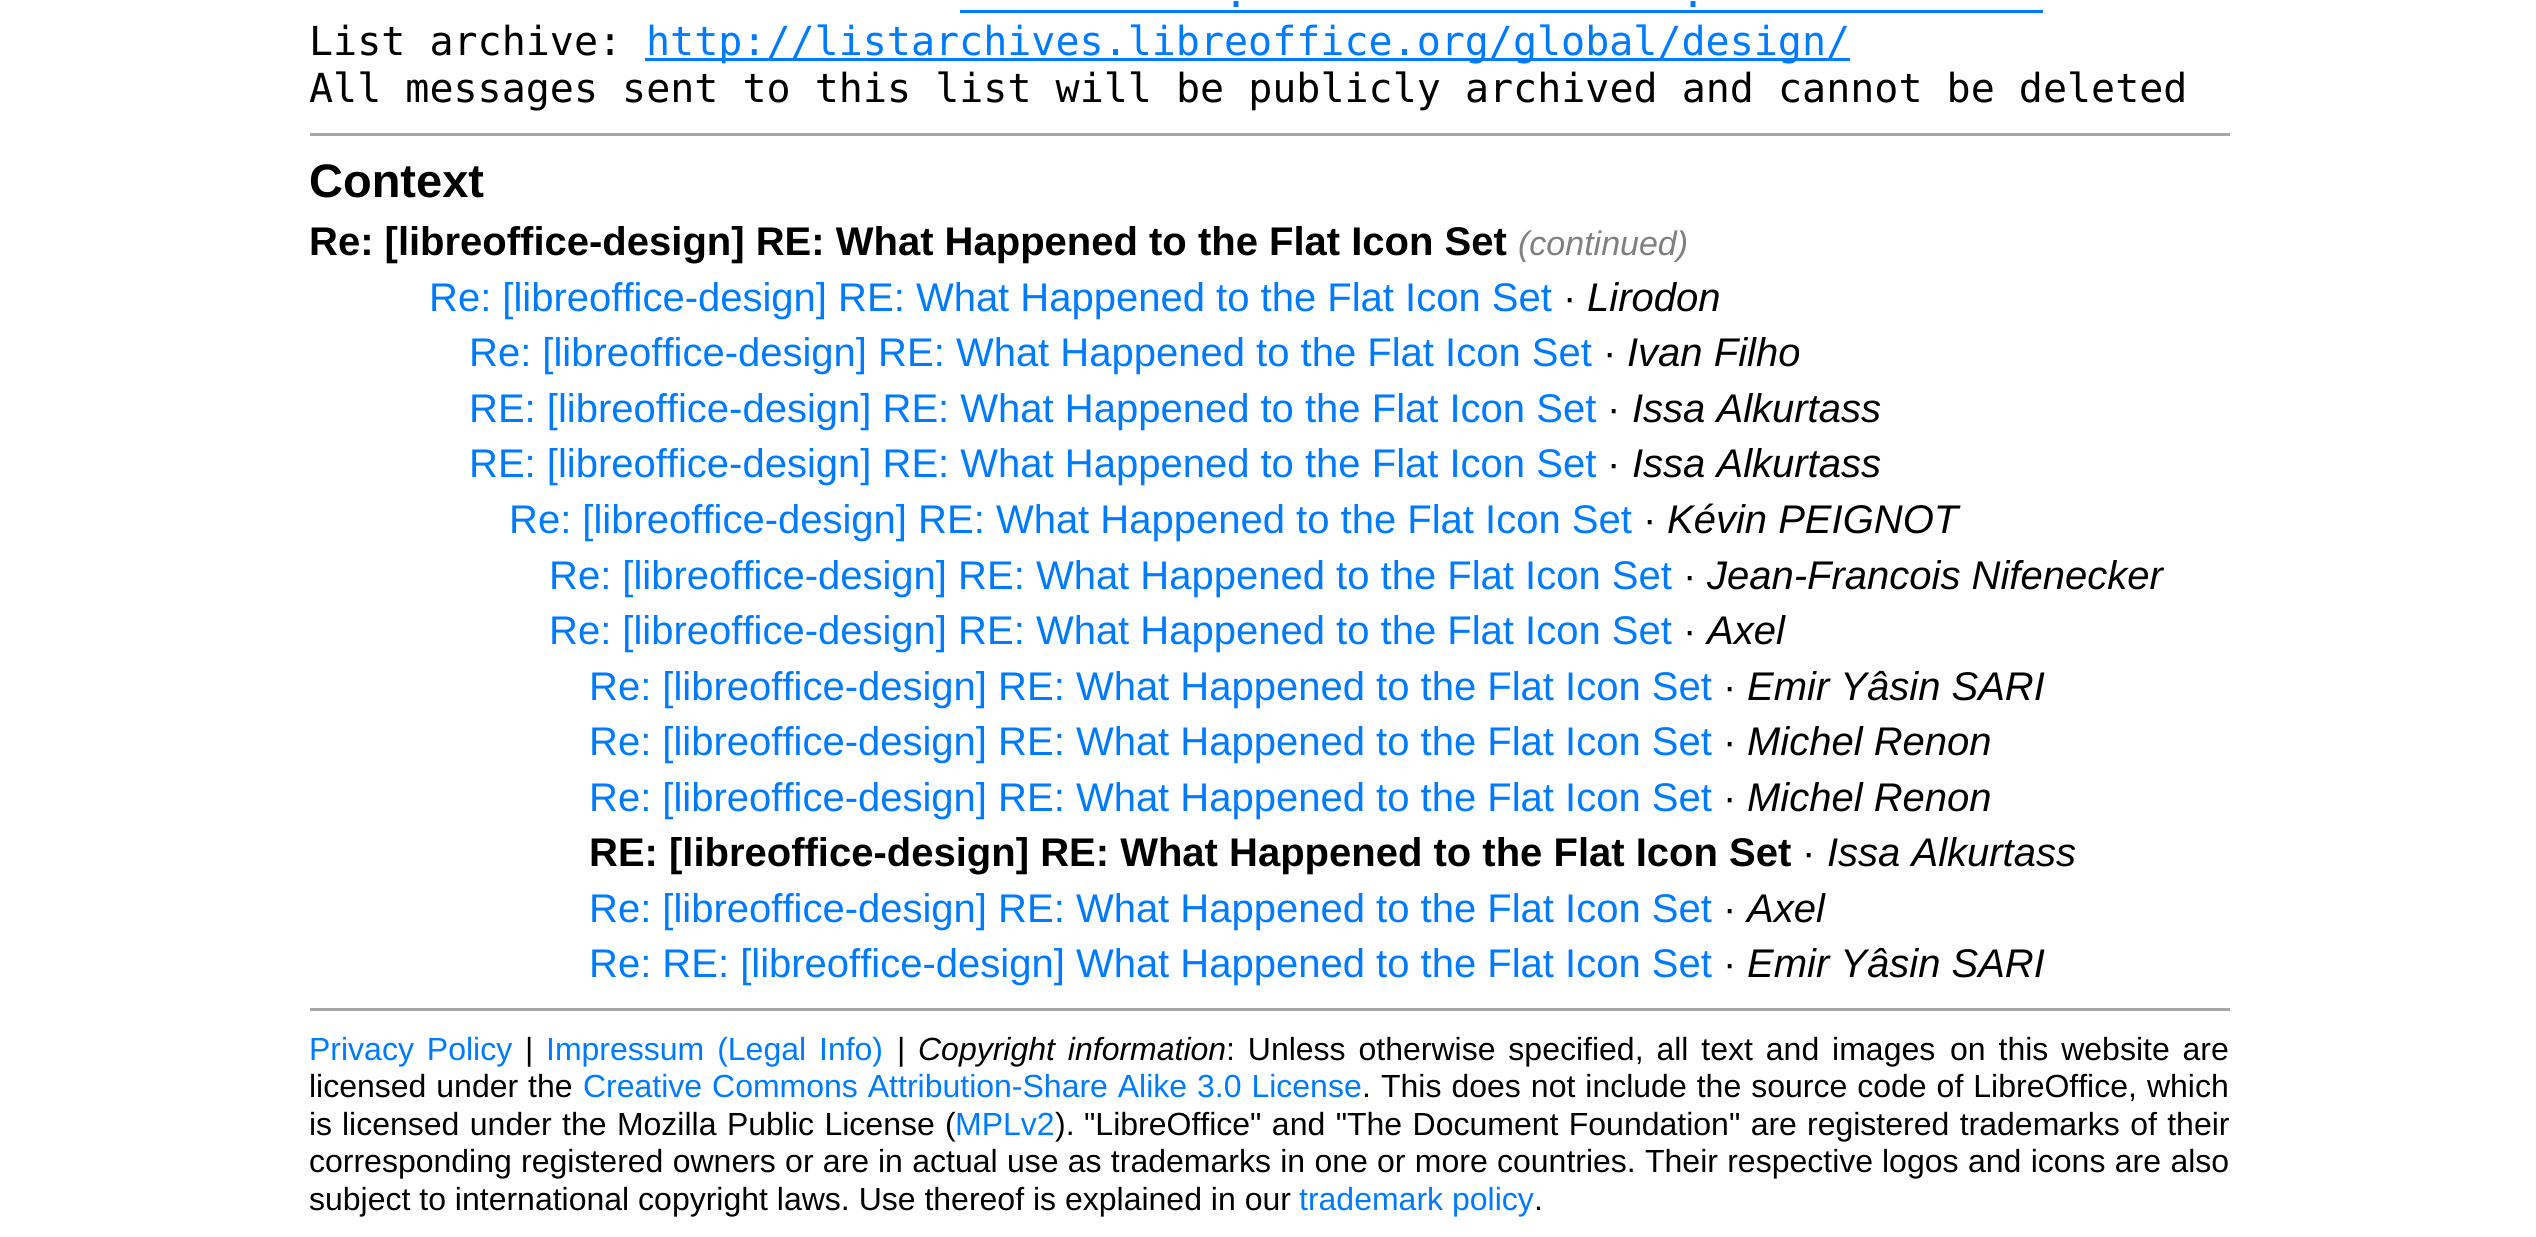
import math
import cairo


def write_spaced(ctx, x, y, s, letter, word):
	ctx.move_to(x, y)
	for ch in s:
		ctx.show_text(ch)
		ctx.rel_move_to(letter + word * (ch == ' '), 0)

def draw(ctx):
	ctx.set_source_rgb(1, 1, 1)
	ctx.paint()
	ctx.select_font_face('DejaVu Sans Mono')
	ctx.set_font_size(40)
	ctx.set_source_rgb(0, 0.482, 1)
	ctx.move_to(1224, 7)
	ctx.show_text('.')
	ctx.rectangle(960, 10, 1083, 3)
	ctx.fill()
	ctx.move_to(1681, 7)
	ctx.show_text('.')
	ctx.set_source_rgb(0, 0, 0)
	ctx.move_to(309, 55)
	ctx.show_text('List archive:')
	ctx.set_source_rgb(0, 0.482, 1)
	ctx.rectangle(645, 58, 1205, 3)
	ctx.fill()
	ctx.move_to(646, 55)
	ctx.show_text('http://listarchives.libreoffice.org/global/design/')
	ctx.set_source_rgb(0, 0, 0)
	ctx.move_to(309, 102)
	ctx.show_text('All messages sent to this list will be publicly archived and cannot be deleted')
	ctx.set_source_rgb(0.651, 0.651, 0.651)
	ctx.rectangle(310, 133, 1920, 3)
	ctx.fill()
	ctx.select_font_face('Liberation Sans', cairo.FONT_SLANT_NORMAL, cairo.FONT_WEIGHT_BOLD)
	ctx.set_font_size(47)
	ctx.set_source_rgb(0, 0, 0)
	ctx.move_to(309, 197)
	ctx.show_text('Context')
	ctx.set_font_size(40)
	ctx.move_to(309, 255)
	ctx.show_text('Re: [libreoffice-design] RE: What Happened to the Flat Icon Set')
	ctx.select_font_face('Liberation Sans', cairo.FONT_SLANT_ITALIC)
	ctx.set_font_size(34)
	ctx.set_source_rgb(0.502, 0.502, 0.502)
	ctx.move_to(1518, 255)
	ctx.show_text('(continued)')
	ctx.select_font_face('Liberation Sans')
	ctx.set_font_size(40)
	ctx.set_source_rgb(0, 0.482, 1)
	ctx.move_to(429, 311)
	ctx.show_text('Re: [libreoffice-design] RE: What Happened to the Flat Icon Set')
	ctx.set_source_rgb(0, 0, 0)
	ctx.move_to(1563, 311)
	ctx.show_text('·')
	ctx.select_font_face('Liberation Sans', cairo.FONT_SLANT_ITALIC)
	ctx.move_to(1587, 311)
	ctx.show_text('Lirodon')
	ctx.select_font_face('Liberation Sans')
	ctx.set_source_rgb(0, 0.482, 1)
	ctx.move_to(469, 366)
	ctx.show_text('Re: [libreoffice-design] RE: What Happened to the Flat Icon Set')
	ctx.set_source_rgb(0, 0, 0)
	ctx.move_to(1603, 366)
	ctx.show_text('·')
	ctx.select_font_face('Liberation Sans', cairo.FONT_SLANT_ITALIC)
	ctx.move_to(1627, 366)
	ctx.show_text('Ivan Filho')
	ctx.select_font_face('Liberation Sans')
	ctx.set_source_rgb(0, 0.482, 1)
	ctx.move_to(469, 422)
	ctx.show_text('RE: [libreoffice-design] RE: What Happened to the Flat Icon Set')
	ctx.set_source_rgb(0, 0, 0)
	ctx.move_to(1607, 422)
	ctx.show_text('·')
	ctx.select_font_face('Liberation Sans', cairo.FONT_SLANT_ITALIC)
	ctx.move_to(1632, 422)
	ctx.show_text('Issa Alkurtass')
	ctx.select_font_face('Liberation Sans')
	ctx.set_source_rgb(0, 0.482, 1)
	ctx.move_to(469, 477)
	ctx.show_text('RE: [libreoffice-design] RE: What Happened to the Flat Icon Set')
	ctx.set_source_rgb(0, 0, 0)
	ctx.move_to(1607, 477)
	ctx.show_text('·')
	ctx.select_font_face('Liberation Sans', cairo.FONT_SLANT_ITALIC)
	ctx.move_to(1632, 477)
	ctx.show_text('Issa Alkurtass')
	ctx.select_font_face('Liberation Sans')
	ctx.set_source_rgb(0, 0.482, 1)
	ctx.move_to(509, 533)
	ctx.show_text('Re: [libreoffice-design] RE: What Happened to the Flat Icon Set')
	ctx.set_source_rgb(0, 0, 0)
	ctx.move_to(1643, 533)
	ctx.show_text('·')
	ctx.select_font_face('Liberation Sans', cairo.FONT_SLANT_ITALIC)
	ctx.move_to(1667, 533)
	ctx.show_text('Kévin PEIGNOT')
	ctx.select_font_face('Liberation Sans')
	ctx.set_source_rgb(0, 0.482, 1)
	ctx.move_to(549, 589)
	ctx.show_text('Re: [libreoffice-design] RE: What Happened to the Flat Icon Set')
	ctx.set_source_rgb(0, 0, 0)
	ctx.move_to(1683, 589)
	ctx.show_text('·')
	ctx.select_font_face('Liberation Sans', cairo.FONT_SLANT_ITALIC)
	ctx.move_to(1707, 589)
	ctx.show_text('Jean-Francois Nifenecker')
	ctx.select_font_face('Liberation Sans')
	ctx.set_source_rgb(0, 0.482, 1)
	ctx.move_to(549, 644)
	ctx.show_text('Re: [libreoffice-design] RE: What Happened to the Flat Icon Set')
	ctx.set_source_rgb(0, 0, 0)
	ctx.move_to(1683, 644)
	ctx.show_text('·')
	ctx.select_font_face('Liberation Sans', cairo.FONT_SLANT_ITALIC)
	ctx.move_to(1707, 644)
	ctx.show_text('Axel')
	ctx.select_font_face('Liberation Sans')
	ctx.set_source_rgb(0, 0.482, 1)
	ctx.move_to(589, 700)
	ctx.show_text('Re: [libreoffice-design] RE: What Happened to the Flat Icon Set')
	ctx.set_source_rgb(0, 0, 0)
	ctx.move_to(1723, 700)
	ctx.show_text('·')
	ctx.select_font_face('Liberation Sans', cairo.FONT_SLANT_ITALIC)
	ctx.move_to(1747, 700)
	ctx.show_text('Emir Yâsin SARI')
	ctx.select_font_face('Liberation Sans')
	ctx.set_source_rgb(0, 0.482, 1)
	ctx.move_to(589, 755)
	ctx.show_text('Re: [libreoffice-design] RE: What Happened to the Flat Icon Set')
	ctx.set_source_rgb(0, 0, 0)
	ctx.move_to(1723, 755)
	ctx.show_text('·')
	ctx.select_font_face('Liberation Sans', cairo.FONT_SLANT_ITALIC)
	ctx.move_to(1747, 755)
	ctx.show_text('Michel Renon')
	ctx.select_font_face('Liberation Sans')
	ctx.set_source_rgb(0, 0.482, 1)
	ctx.move_to(589, 811)
	ctx.show_text('Re: [libreoffice-design] RE: What Happened to the Flat Icon Set')
	ctx.set_source_rgb(0, 0, 0)
	ctx.move_to(1723, 811)
	ctx.show_text('·')
	ctx.select_font_face('Liberation Sans', cairo.FONT_SLANT_ITALIC)
	ctx.move_to(1747, 811)
	ctx.show_text('Michel Renon')
	ctx.select_font_face('Liberation Sans', cairo.FONT_SLANT_NORMAL, cairo.FONT_WEIGHT_BOLD)
	ctx.move_to(589, 866)
	ctx.show_text('RE: [libreoffice-design] RE: What Happened to the Flat Icon Set')
	ctx.select_font_face('Liberation Sans')
	ctx.move_to(1802, 866)
	ctx.show_text('·')
	ctx.select_font_face('Liberation Sans', cairo.FONT_SLANT_ITALIC)
	ctx.move_to(1827, 866)
	ctx.show_text('Issa Alkurtass')
	ctx.select_font_face('Liberation Sans')
	ctx.set_source_rgb(0, 0.482, 1)
	ctx.move_to(589, 922)
	ctx.show_text('Re: [libreoffice-design] RE: What Happened to the Flat Icon Set')
	ctx.set_source_rgb(0, 0, 0)
	ctx.move_to(1723, 922)
	ctx.show_text('·')
	ctx.select_font_face('Liberation Sans', cairo.FONT_SLANT_ITALIC)
	ctx.move_to(1747, 922)
	ctx.show_text('Axel')
	ctx.select_font_face('Liberation Sans')
	ctx.set_source_rgb(0, 0.482, 1)
	ctx.move_to(589, 977)
	ctx.show_text('Re: RE: [libreoffice-design] What Happened to the Flat Icon Set')
	ctx.set_source_rgb(0, 0, 0)
	ctx.move_to(1723, 977)
	ctx.show_text('·')
	ctx.select_font_face('Liberation Sans', cairo.FONT_SLANT_ITALIC)
	ctx.move_to(1747, 977)
	ctx.show_text('Emir Yâsin SARI')
	ctx.set_source_rgb(0.651, 0.651, 0.651)
	ctx.rectangle(310, 1008, 1920, 3)
	ctx.fill()
	ctx.select_font_face('Liberation Sans')
	ctx.set_font_size(32)
	ctx.set_source_rgb(0, 0.482, 1)
	write_spaced(ctx, 309, 1060, 'Privacy Policy', 0, 4)
	ctx.set_source_rgb(0, 0, 0)
	ctx.move_to(525, 1060)
	ctx.show_text('|')
	ctx.set_source_rgb(0, 0.482, 1)
	write_spaced(ctx, 546, 1060, 'Impressum (Legal Info)', 0, 4)
	ctx.set_source_rgb(0, 0, 0)
	ctx.move_to(897, 1060)
	ctx.show_text('|')
	ctx.select_font_face('Liberation Sans', cairo.FONT_SLANT_ITALIC)
	write_spaced(ctx, 918, 1060, 'Copyright information', 0, 4)
	ctx.select_font_face('Liberation Sans')
	write_spaced(ctx, 1226, 1060, ': Unless otherwise specified, all text and images', 0, 4)
	write_spaced(ctx, 1950, 1060, 'on this website are', 0, 4)
	write_spaced(ctx, 309, 1097, 'licensed under the', 0, 1)
	ctx.set_source_rgb(0, 0.482, 1)
	write_spaced(ctx, 583, 1097, 'Creative Commons Attribution-Share Alike 3.0 License', 0, 1)
	ctx.set_source_rgb(0, 0, 0)
	ctx.move_to(1362, 1097)
	ctx.show_text('.')
	write_spaced(ctx, 1381, 1097, 'This does not include the source code of LibreOffice, which', 0, 1.1)
	ctx.move_to(309, 1135)
	ctx.show_text('is')
	write_spaced(ctx, 342, 1135, 'licensed under the Mozilla Public License (', 0, 1.5)
	ctx.set_source_rgb(0, 0.482, 1)
	ctx.move_to(955, 1135)
	ctx.show_text('MPLv2')
	ctx.set_source_rgb(0, 0, 0)
	ctx.move_to(1055, 1135)
	ctx.show_text(').')
	write_spaced(ctx, 1084, 1135, '"LibreOffice" and "The Document Foundation" are', 0, 1.5)
	write_spaced(ctx, 1807, 1135, 'registered trademarks of their', 0, 1.5)
	write_spaced(ctx, 309, 1172, 'corresponding registered owners or are', 0, 0.4)
	write_spaced(ctx, 878, 1172, 'in actual use as trademarks in one or more countries. Their respective', 0, 0.4)
	write_spaced(ctx, 1882, 1172, 'logos and icons are also', 0, 0.5)
	ctx.move_to(309, 1210)
	ctx.show_text('subject to international copyright laws. Use thereof is explained in our')
	ctx.set_source_rgb(0, 0.482, 1)
	ctx.move_to(1299, 1210)
	ctx.show_text('trademark policy')
	ctx.set_source_rgb(0, 0, 0)
	ctx.move_to(1534, 1210)
	ctx.show_text('.')


surface = cairo.ImageSurface(cairo.FORMAT_RGB24, 2536, 1237)
ctx = cairo.Context(surface)
options = cairo.FontOptions()
options.set_hint_metrics(cairo.HINT_METRICS_OFF)
options.set_hint_style(cairo.HINT_STYLE_NONE)
ctx.set_font_options(options)
ctx.set_miter_limit(4)
draw(ctx)
surface.write_to_png('image.png')
